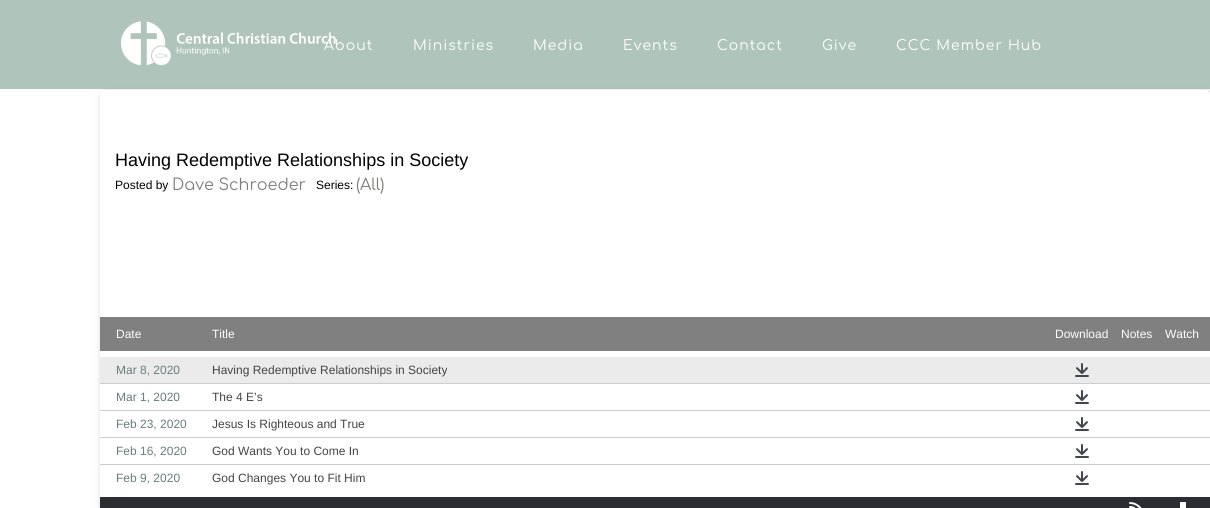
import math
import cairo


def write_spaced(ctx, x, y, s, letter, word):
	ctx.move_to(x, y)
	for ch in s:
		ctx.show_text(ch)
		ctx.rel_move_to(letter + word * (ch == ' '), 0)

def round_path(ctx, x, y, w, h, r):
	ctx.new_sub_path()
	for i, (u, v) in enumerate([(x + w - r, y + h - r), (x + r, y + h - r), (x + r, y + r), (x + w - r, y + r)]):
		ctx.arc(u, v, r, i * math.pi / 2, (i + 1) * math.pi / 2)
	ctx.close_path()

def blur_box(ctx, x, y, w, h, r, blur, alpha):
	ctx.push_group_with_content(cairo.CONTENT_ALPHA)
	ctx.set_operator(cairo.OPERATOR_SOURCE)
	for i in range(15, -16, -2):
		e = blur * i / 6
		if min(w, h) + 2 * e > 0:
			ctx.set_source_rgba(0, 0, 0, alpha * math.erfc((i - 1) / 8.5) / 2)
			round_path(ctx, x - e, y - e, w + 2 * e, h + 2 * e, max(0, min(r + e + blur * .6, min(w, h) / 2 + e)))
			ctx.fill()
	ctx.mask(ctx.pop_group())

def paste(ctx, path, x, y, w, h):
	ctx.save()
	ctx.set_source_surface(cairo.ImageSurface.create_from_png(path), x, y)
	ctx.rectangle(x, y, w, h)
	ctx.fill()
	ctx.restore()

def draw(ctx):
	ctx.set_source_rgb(1, 1, 1)
	ctx.paint()
	ctx.set_source_rgb(0, 0, 0)
	blur_box(ctx, 102, 92, 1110, 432, 5, 3.5, 0.25)
	ctx.set_source_rgba(0.549, 0.671, 0.616, 0.69)
	ctx.rectangle(0, 0, 1210, 89)
	ctx.fill()
	paste(ctx, 'media/1.png', 121, 21, 215, 45)
	ctx.select_font_face('Comfortaa')
	ctx.set_font_size(14)
	ctx.set_source_rgb(1, 1, 1)
	for x, y, s in [
		(324, 50, 'About'),
		(413, 50, 'Ministries'),
		(533, 50, 'Media'),
		(623, 50, 'Events'),
		(717, 50, 'Contact'),
		(822, 50, 'Give'),
		(896, 50, 'CCC Member Hub'),
	]:
		write_spaced(ctx, x, y, s, 1, 0)
	round_path(ctx, 100, 90, 1110, 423, 5)
	ctx.fill()
	ctx.select_font_face('Liberation Sans')
	ctx.set_font_size(18)
	ctx.set_source_rgb(0, 0, 0)
	ctx.move_to(115, 166)
	ctx.show_text('Having Redemptive Relationships in Society')
	ctx.set_font_size(12)
	ctx.move_to(115, 189)
	ctx.show_text('Posted by')
	ctx.select_font_face('Comfortaa')
	ctx.set_font_size(16)
	ctx.set_source_rgb(0.498, 0.502, 0.49)
	ctx.move_to(172, 190)
	ctx.show_text('Dave Schroeder')
	ctx.select_font_face('Liberation Sans')
	ctx.set_font_size(12)
	ctx.set_source_rgb(0, 0, 0)
	ctx.move_to(316, 189)
	ctx.show_text('Series:')
	ctx.select_font_face('Comfortaa')
	ctx.set_font_size(16)
	ctx.set_source_rgb(0.498, 0.502, 0.49)
	ctx.move_to(356, 190)
	ctx.show_text('(All)')
	ctx.set_source_rgb(0.502, 0.502, 0.502)
	ctx.rectangle(100, 317, 1110, 34)
	ctx.fill()
	ctx.select_font_face('Liberation Sans')
	ctx.set_font_size(12)
	ctx.set_source_rgb(1, 1, 1)
	for x, y, s in [
		(116, 338, 'Date'),
		(212, 338, 'Title'),
		(1055, 338, 'Download'),
		(1121, 338, 'Notes'),
		(1165, 338, 'Watch'),
	]:
		ctx.move_to(x, y)
		ctx.show_text(s)
	ctx.set_source_rgb(0.918, 0.918, 0.918)
	ctx.rectangle(100, 357, 1110, 26)
	ctx.fill()
	ctx.set_source_rgb(0.408, 0.494, 0.486)
	ctx.move_to(116, 374)
	ctx.show_text('Mar 8, 2020')
	ctx.set_source_rgb(0.267, 0.267, 0.267)
	ctx.move_to(212, 374)
	ctx.show_text('Having Redemptive Relationships in Society')
	paste(ctx, 'media/2.png', 1075, 363, 14, 14)
	ctx.set_source_rgb(0.8, 0.8, 0.8)
	ctx.rectangle(100, 383, 1110, 1)
	ctx.fill()
	ctx.set_source_rgb(0.408, 0.494, 0.486)
	ctx.move_to(116, 401)
	ctx.show_text('Mar 1, 2020')
	ctx.set_source_rgb(0.267, 0.267, 0.267)
	ctx.move_to(212, 401)
	ctx.show_text('The 4 E’s')
	paste(ctx, 'media/3.png', 1075, 390, 14, 14)
	ctx.set_source_rgb(0.8, 0.8, 0.8)
	ctx.rectangle(100, 410, 1110, 1)
	ctx.fill()
	ctx.set_source_rgb(0.408, 0.494, 0.486)
	ctx.move_to(116, 428)
	ctx.show_text('Feb 23, 2020')
	ctx.set_source_rgb(0.267, 0.267, 0.267)
	ctx.move_to(212, 428)
	ctx.show_text('Jesus Is Righteous and True')
	paste(ctx, 'media/3.png', 1075, 417, 14, 14)
	ctx.set_source_rgb(0.8, 0.8, 0.8)
	ctx.rectangle(100, 437, 1110, 1)
	ctx.fill()
	ctx.set_source_rgb(0.408, 0.494, 0.486)
	ctx.move_to(116, 455)
	ctx.show_text('Feb 16, 2020')
	ctx.set_source_rgb(0.267, 0.267, 0.267)
	ctx.move_to(212, 455)
	ctx.show_text('God Wants You to Come In')
	paste(ctx, 'media/3.png', 1075, 444, 14, 14)
	ctx.set_source_rgb(0.8, 0.8, 0.8)
	ctx.rectangle(100, 464, 1110, 1)
	ctx.fill()
	ctx.set_source_rgb(0.408, 0.494, 0.486)
	ctx.move_to(116, 482)
	ctx.show_text('Feb 9, 2020')
	ctx.set_source_rgb(0.267, 0.267, 0.267)
	ctx.move_to(212, 482)
	ctx.show_text('God Changes You to Fit Him')
	paste(ctx, 'media/3.png', 1075, 471, 14, 14)
	ctx.set_source_rgb(0.173, 0.176, 0.2)
	ctx.rectangle(100, 497, 1110, 11)
	ctx.fill()
	paste(ctx, 'media/4.png', 1129, 502, 13, 6)
	ctx.set_source_rgb(1, 1, 1)
	ctx.rectangle(1180, 502, 6, 6)
	ctx.fill()


surface = cairo.ImageSurface(cairo.FORMAT_RGB24, 1210, 508)
ctx = cairo.Context(surface)
options = cairo.FontOptions()
options.set_hint_metrics(cairo.HINT_METRICS_OFF)
options.set_hint_style(cairo.HINT_STYLE_NONE)
ctx.set_font_options(options)
ctx.set_miter_limit(4)
draw(ctx)
surface.write_to_png('image.png')
